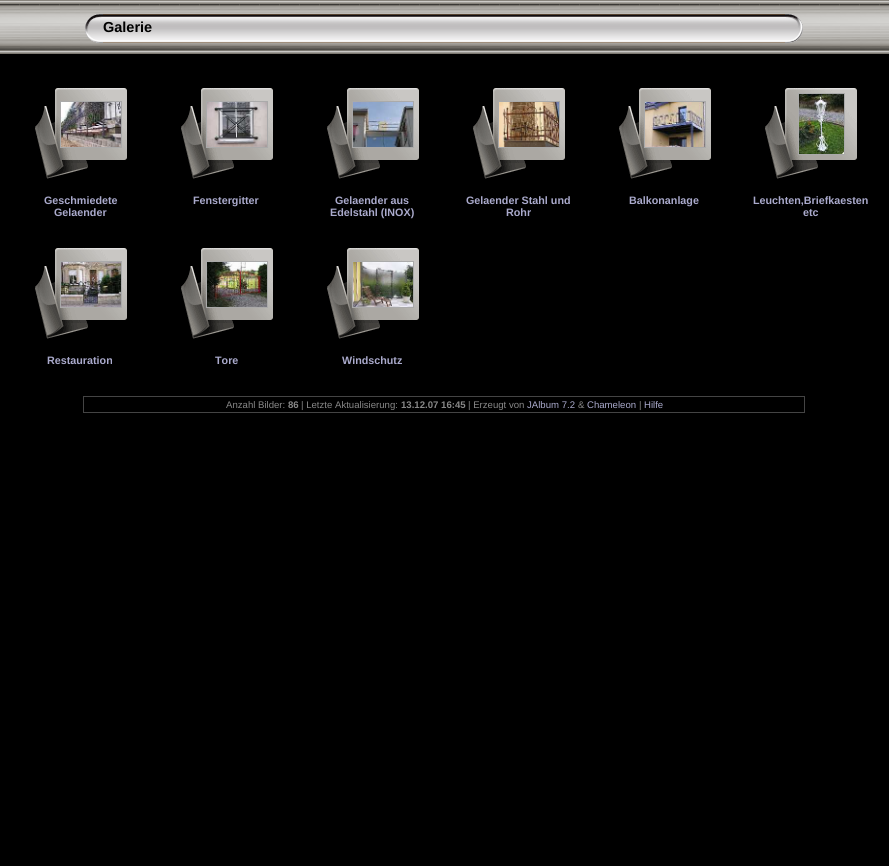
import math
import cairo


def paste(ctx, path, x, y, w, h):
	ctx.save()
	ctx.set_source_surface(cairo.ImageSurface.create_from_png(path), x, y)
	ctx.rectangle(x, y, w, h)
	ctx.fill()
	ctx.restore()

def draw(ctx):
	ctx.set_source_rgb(0, 0, 0)
	ctx.paint()
	paste(ctx, 'media/1.png', 0, 0, 889, 54)
	paste(ctx, 'media/2.png', 85, 14, 18, 29)
	paste(ctx, 'media/3.png', 103, 14, 682, 29)
	ctx.select_font_face('Liberation Sans', cairo.FONT_SLANT_NORMAL, cairo.FONT_WEIGHT_BOLD)
	ctx.set_font_size(14.5)
	ctx.set_source_rgb(0, 0, 0)
	ctx.move_to(103, 32)
	ctx.show_text('Galerie')
	paste(ctx, 'media/4.png', 785, 14, 18, 29)
	paste(ctx, 'media/5.png', 35, 88, 92, 91)
	ctx.rectangle(60.5, 101.5, 61, 46)
	ctx.set_source_rgb(0.667, 0.667, 0.667)
	ctx.set_line_width(1)
	ctx.stroke()
	paste(ctx, 'media/6.png', 61, 102, 60, 45)
	ctx.set_font_size(10.75)
	ctx.set_source_rgb(0.667, 0.667, 0.8)
	ctx.move_to(44, 204)
	ctx.show_text('Geschmiedete')
	ctx.move_to(54, 216)
	ctx.show_text('Gelaender')
	paste(ctx, 'media/5.png', 181, 88, 92, 91)
	ctx.rectangle(206.5, 101.5, 61, 46)
	ctx.set_source_rgb(0.667, 0.667, 0.667)
	ctx.stroke()
	paste(ctx, 'media/7.png', 207, 102, 60, 45)
	ctx.set_source_rgb(0.667, 0.667, 0.8)
	ctx.move_to(193, 204)
	ctx.show_text('Fenstergitter')
	paste(ctx, 'media/5.png', 327, 88, 92, 91)
	ctx.rectangle(352.5, 101.5, 61, 46)
	ctx.set_source_rgb(0.667, 0.667, 0.667)
	ctx.stroke()
	paste(ctx, 'media/8.png', 353, 102, 60, 45)
	ctx.set_source_rgb(0.667, 0.667, 0.8)
	ctx.move_to(335, 204)
	ctx.show_text('Gelaender aus')
	ctx.move_to(330, 216)
	ctx.show_text('Edelstahl (INOX)')
	paste(ctx, 'media/5.png', 473, 88, 92, 91)
	ctx.rectangle(498.5, 101.5, 61, 46)
	ctx.set_source_rgb(0.667, 0.667, 0.667)
	ctx.stroke()
	paste(ctx, 'media/9.png', 499, 102, 60, 45)
	ctx.set_source_rgb(0.667, 0.667, 0.8)
	ctx.move_to(466, 204)
	ctx.show_text('Gelaender Stahl und')
	ctx.move_to(506, 216)
	ctx.show_text('Rohr')
	paste(ctx, 'media/5.png', 619, 88, 92, 91)
	ctx.rectangle(644.5, 101.5, 61, 46)
	ctx.set_source_rgb(0.667, 0.667, 0.667)
	ctx.stroke()
	paste(ctx, 'media/10.png', 645, 102, 60, 45)
	ctx.set_source_rgb(0.667, 0.667, 0.8)
	ctx.move_to(629, 204)
	ctx.show_text('Balkonanlage')
	paste(ctx, 'media/5.png', 765, 88, 92, 91)
	ctx.rectangle(798.5, 93.5, 46, 61)
	ctx.set_source_rgb(0.667, 0.667, 0.667)
	ctx.stroke()
	paste(ctx, 'media/11.png', 799, 94, 45, 60)
	ctx.set_source_rgb(0.667, 0.667, 0.8)
	ctx.move_to(753, 204)
	ctx.show_text('Leuchten,Briefkaesten')
	ctx.move_to(803, 216)
	ctx.show_text('etc')
	paste(ctx, 'media/5.png', 35, 248, 92, 91)
	ctx.rectangle(60.5, 261.5, 61, 46)
	ctx.set_source_rgb(0.667, 0.667, 0.667)
	ctx.stroke()
	paste(ctx, 'media/12.png', 61, 262, 60, 45)
	ctx.set_source_rgb(0.667, 0.667, 0.8)
	ctx.move_to(47, 364)
	ctx.show_text('Restauration')
	paste(ctx, 'media/5.png', 181, 248, 92, 91)
	ctx.rectangle(206.5, 261.5, 61, 46)
	ctx.set_source_rgb(0.667, 0.667, 0.667)
	ctx.stroke()
	paste(ctx, 'media/13.png', 207, 262, 60, 45)
	ctx.set_source_rgb(0.667, 0.667, 0.8)
	ctx.move_to(215, 364)
	ctx.show_text('Tore')
	paste(ctx, 'media/5.png', 327, 248, 92, 91)
	ctx.rectangle(352.5, 261.5, 61, 46)
	ctx.set_source_rgb(0.667, 0.667, 0.667)
	ctx.stroke()
	paste(ctx, 'media/14.png', 353, 262, 60, 45)
	ctx.set_source_rgb(0.667, 0.667, 0.8)
	ctx.move_to(342, 364)
	ctx.show_text('Windschutz')
	ctx.set_source_rgb(0.267, 0.267, 0.267)
	ctx.rectangle(83, 396, 722, 1)
	ctx.rectangle(804, 396, 1, 17)
	ctx.rectangle(83, 412, 722, 1)
	ctx.rectangle(83, 396, 1, 17)
	ctx.fill()
	ctx.select_font_face('Liberation Sans')
	ctx.set_font_size(9.6)
	ctx.set_source_rgb(0.533, 0.533, 0.533)
	ctx.move_to(226, 408)
	ctx.show_text('Anzahl Bilder:')
	ctx.select_font_face('Liberation Sans', cairo.FONT_SLANT_NORMAL, cairo.FONT_WEIGHT_BOLD)
	ctx.move_to(288, 408)
	ctx.show_text('86')
	ctx.select_font_face('Liberation Sans')
	ctx.move_to(301, 408)
	ctx.show_text('| Letzte Aktualisierung:')
	ctx.select_font_face('Liberation Sans', cairo.FONT_SLANT_NORMAL, cairo.FONT_WEIGHT_BOLD)
	ctx.move_to(401, 408)
	ctx.show_text('13.12.07 16:45')
	ctx.select_font_face('Liberation Sans')
	ctx.move_to(468, 408)
	ctx.show_text('| Erzeugt von')
	ctx.set_source_rgb(0.667, 0.667, 0.8)
	ctx.move_to(527, 408)
	ctx.show_text('JAlbum 7.2')
	ctx.set_source_rgb(0.533, 0.533, 0.533)
	ctx.move_to(578, 408)
	ctx.show_text('&')
	ctx.set_source_rgb(0.667, 0.667, 0.8)
	ctx.move_to(587, 408)
	ctx.show_text('Chameleon')
	ctx.set_source_rgb(0.533, 0.533, 0.533)
	ctx.move_to(639, 408)
	ctx.show_text('|')
	ctx.set_source_rgb(0.667, 0.667, 0.8)
	ctx.move_to(644, 408)
	ctx.show_text('Hilfe')


surface = cairo.ImageSurface(cairo.FORMAT_RGB24, 889, 866)
ctx = cairo.Context(surface)
options = cairo.FontOptions()
options.set_hint_metrics(cairo.HINT_METRICS_OFF)
options.set_hint_style(cairo.HINT_STYLE_NONE)
ctx.set_font_options(options)
ctx.set_miter_limit(4)
draw(ctx)
surface.write_to_png('image.png')
